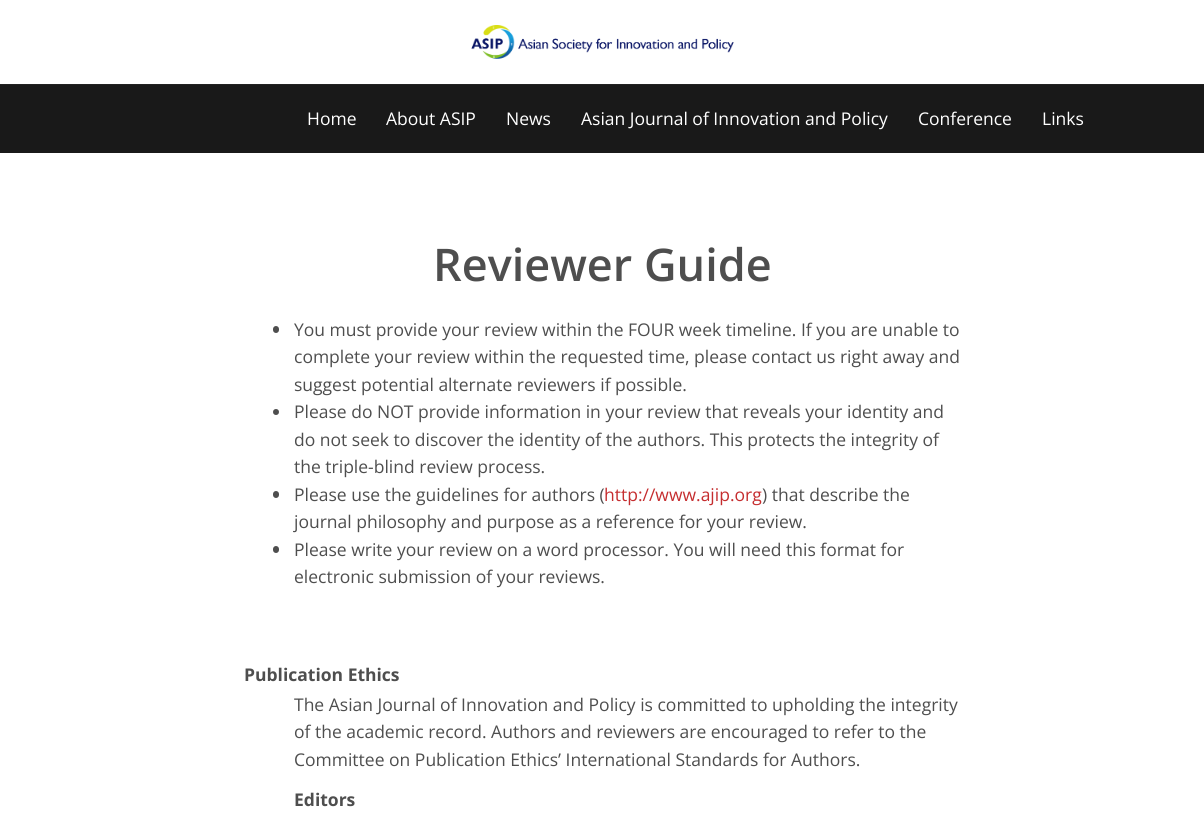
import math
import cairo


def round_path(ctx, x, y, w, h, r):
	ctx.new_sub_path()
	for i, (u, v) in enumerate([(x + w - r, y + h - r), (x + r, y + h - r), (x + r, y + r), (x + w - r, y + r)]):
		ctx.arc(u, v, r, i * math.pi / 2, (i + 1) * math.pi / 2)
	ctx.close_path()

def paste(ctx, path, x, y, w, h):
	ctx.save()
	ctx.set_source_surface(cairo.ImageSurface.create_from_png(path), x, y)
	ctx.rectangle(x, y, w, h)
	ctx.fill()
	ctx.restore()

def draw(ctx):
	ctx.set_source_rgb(1, 1, 1)
	ctx.paint()
	ctx.set_source_rgb(0.133, 0.133, 0.133)
	ctx.rectangle(0, 84, 1204, 1)
	ctx.fill()
	paste(ctx, 'media/1.png', 471, 25, 263, 34)
	ctx.set_source_rgb(0.098, 0.098, 0.098)
	ctx.rectangle(0, 85, 1204, 68)
	ctx.fill()
	ctx.select_font_face('Open Sans')
	ctx.set_font_size(17.5)
	ctx.set_source_rgb(1, 1, 1)
	for x, y, s in [
		(307, 125, 'Home'),
		(386, 125, 'About ASIP'),
		(506, 125, 'News'),
		(581, 125, 'Asian Journal of Innovation and Policy'),
		(918, 125, 'Conference'),
		(1042, 125, 'Links'),
	]:
		ctx.move_to(x, y)
		ctx.show_text(s)
	ctx.select_font_face('Open Sans SemiBold')
	ctx.set_font_size(45)
	ctx.set_source_rgb(0.306, 0.306, 0.306)
	ctx.move_to(433, 281)
	ctx.show_text('Reviewer Guide')
	round_path(ctx, 273, 326, 6, 7, 3)
	ctx.fill()
	ctx.select_font_face('Open Sans')
	ctx.set_font_size(17.5)
	for x, y, s in [
		(294, 336, 'You must provide your review within the FOUR week timeline. If you are unable to'),
		(294, 363, 'complete your review within the requested time, please contact us right away and'),
		(294, 391, 'suggest potential alternate reviewers if possible.'),
	]:
		ctx.move_to(x, y)
		ctx.show_text(s)
	ctx.new_path()
	ctx.arc(276, 412, 3, 0, 2 * math.pi)
	ctx.fill()
	for x, y, s in [
		(294, 418, 'Please do NOT provide information in your review that reveals your identity and'),
		(294, 446, 'do not seek to discover the identity of the authors. This protects the integrity of'),
		(294, 473, 'the triple-blind review process.'),
	]:
		ctx.move_to(x, y)
		ctx.show_text(s)
	round_path(ctx, 273, 491, 6, 7, 3)
	ctx.fill()
	ctx.move_to(294, 501)
	ctx.show_text('Please use the guidelines for authors (')
	ctx.set_source_rgb(0.773, 0.176, 0.184)
	ctx.move_to(604, 501)
	ctx.show_text('http://www.ajip.org')
	ctx.set_source_rgb(0.306, 0.306, 0.306)
	ctx.move_to(762, 501)
	ctx.show_text(') that describe the')
	ctx.move_to(294, 528)
	ctx.show_text('journal philosophy and purpose as a reference for your review.')
	round_path(ctx, 273, 546, 6, 7, 3)
	ctx.fill()
	ctx.move_to(294, 556)
	ctx.show_text('Please write your review on a word processor. You will need this format for')
	ctx.move_to(294, 583)
	ctx.show_text('electronic submission of your reviews.')
	ctx.select_font_face('Open Sans', cairo.FONT_SLANT_NORMAL, cairo.FONT_WEIGHT_BOLD)
	ctx.move_to(244, 681)
	ctx.show_text('Publication Ethics')
	ctx.select_font_face('Open Sans')
	for x, y, s in [
		(294, 711, 'The Asian Journal of Innovation and Policy is committed to upholding the integrity'),
		(294, 738, 'of the academic record. Authors and reviewers are encouraged to refer to the'),
		(294, 766, 'Committee on Publication Ethics’ International Standards for Authors.'),
	]:
		ctx.move_to(x, y)
		ctx.show_text(s)
	ctx.select_font_face('Open Sans', cairo.FONT_SLANT_NORMAL, cairo.FONT_WEIGHT_BOLD)
	ctx.move_to(294, 806)
	ctx.show_text('Editors')


surface = cairo.ImageSurface(cairo.FORMAT_RGB24, 1204, 827)
ctx = cairo.Context(surface)
options = cairo.FontOptions()
options.set_hint_metrics(cairo.HINT_METRICS_OFF)
options.set_hint_style(cairo.HINT_STYLE_NONE)
ctx.set_font_options(options)
ctx.set_miter_limit(4)
draw(ctx)
surface.write_to_png('image.png')
